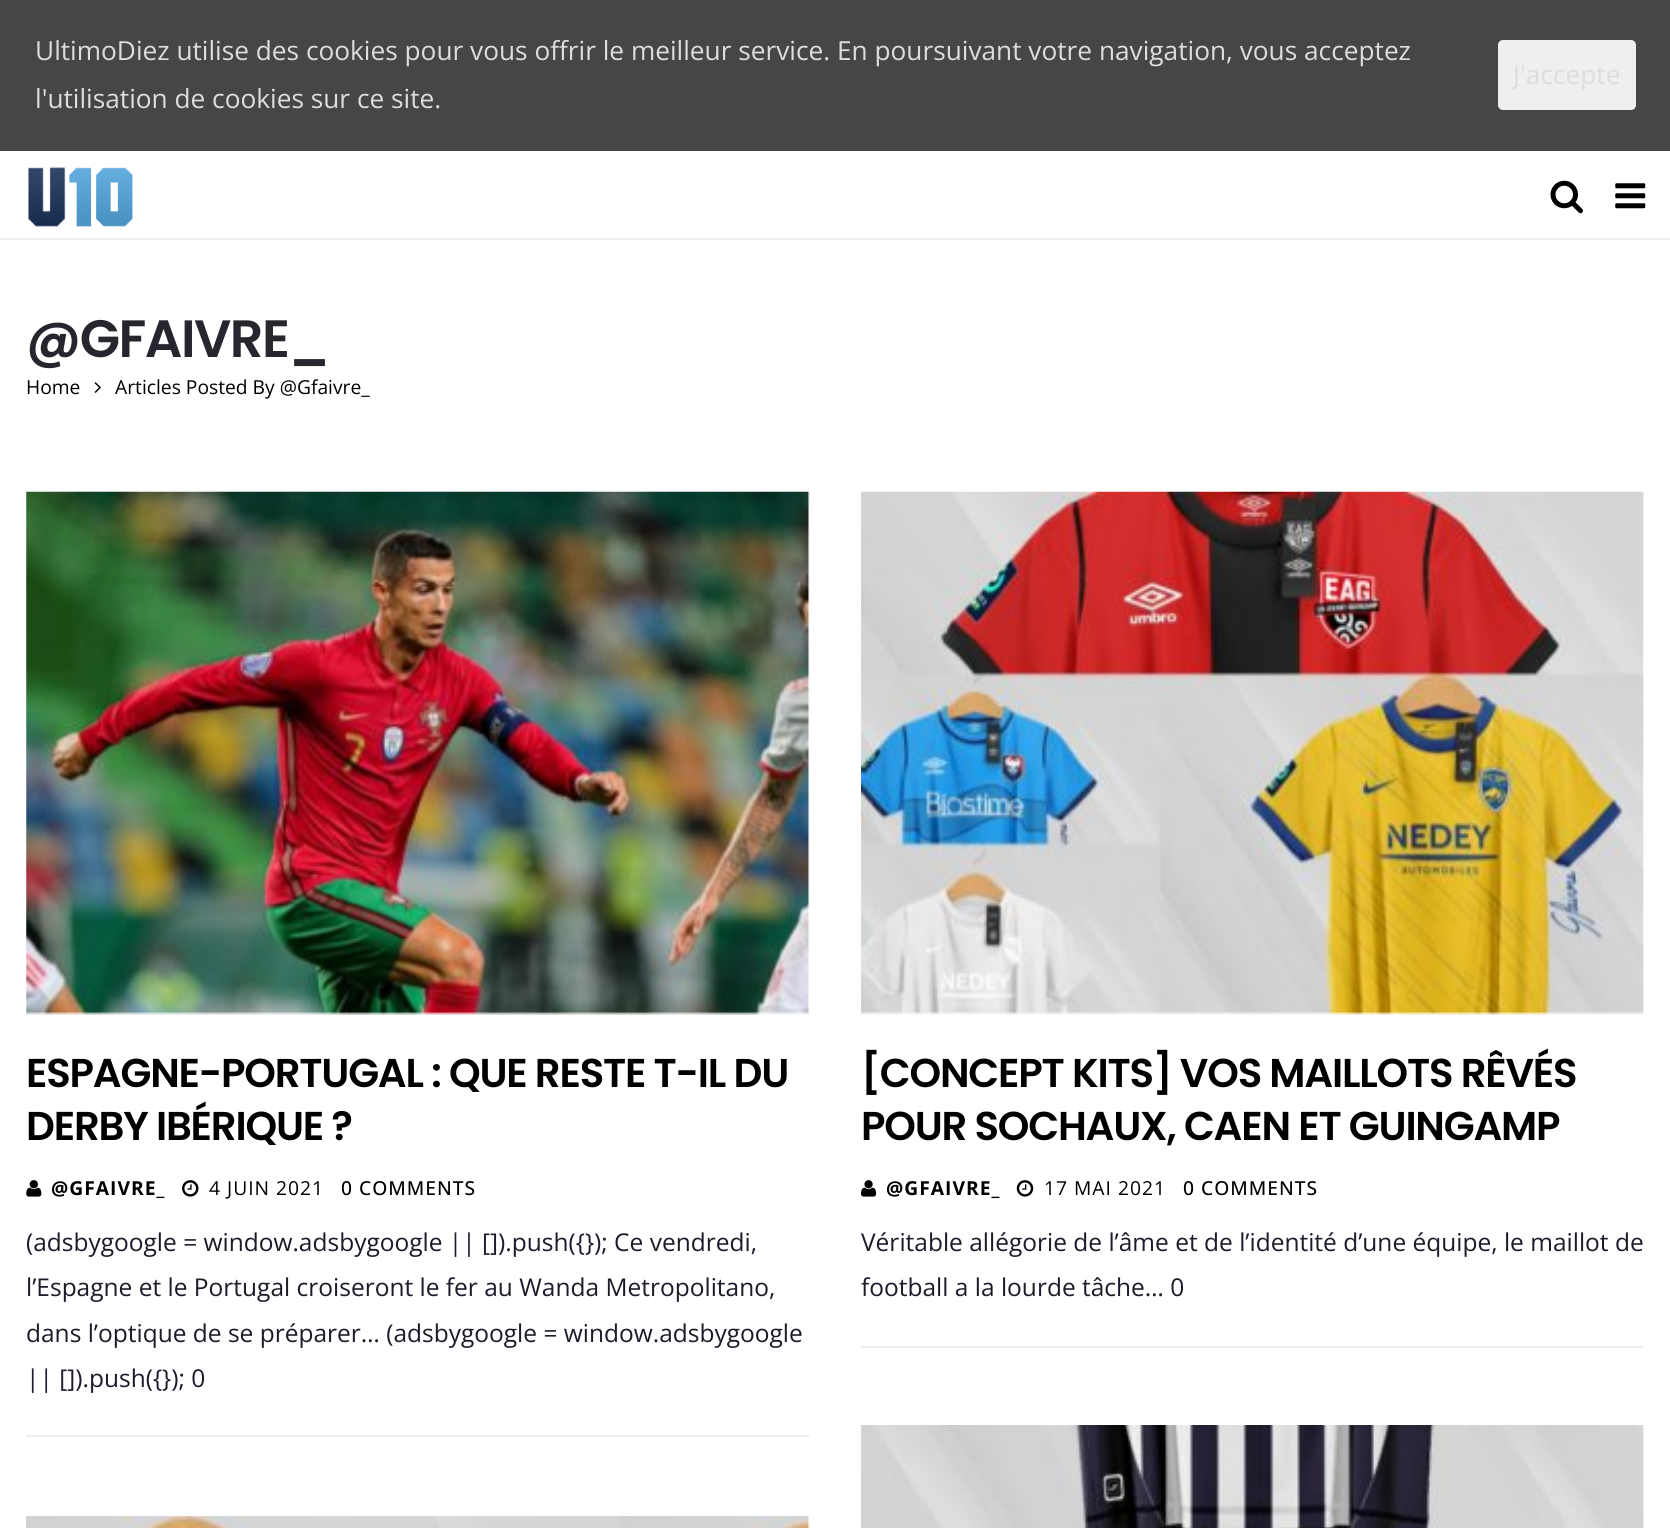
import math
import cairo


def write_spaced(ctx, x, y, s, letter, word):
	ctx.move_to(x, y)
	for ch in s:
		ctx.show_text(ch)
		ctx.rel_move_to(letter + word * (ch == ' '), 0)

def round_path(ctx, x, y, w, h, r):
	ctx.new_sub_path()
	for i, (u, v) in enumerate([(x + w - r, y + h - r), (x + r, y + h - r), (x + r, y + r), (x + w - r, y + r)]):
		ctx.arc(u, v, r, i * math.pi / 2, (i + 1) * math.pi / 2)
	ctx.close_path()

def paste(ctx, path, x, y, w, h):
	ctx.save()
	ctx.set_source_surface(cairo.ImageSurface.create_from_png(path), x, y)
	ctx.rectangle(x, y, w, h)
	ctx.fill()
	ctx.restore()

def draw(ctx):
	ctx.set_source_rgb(1, 1, 1)
	ctx.paint()
	ctx.set_source_rgb(0.275, 0.275, 0.275)
	ctx.rectangle(0, 0, 1670, 151)
	ctx.fill()
	ctx.select_font_face('Open Sans')
	ctx.set_font_size(26.25)
	ctx.set_source_rgb(0.867, 0.867, 0.867)
	ctx.move_to(35, 60)
	ctx.show_text('UltimoDiez utilise des cookies pour vous offrir le meilleur service. En poursuivant votre navigation, vous acceptez')
	ctx.move_to(35, 108)
	ctx.show_text('l\'utilisation de cookies sur ce site.')
	ctx.set_source_rgb(0.937, 0.937, 0.937)
	round_path(ctx, 1498, 40, 138, 70, 5)
	ctx.fill()
	ctx.set_source_rgb(0.867, 0.867, 0.867)
	ctx.move_to(1513, 84)
	ctx.show_text('J\'accepte')
	ctx.set_source_rgb(0.941, 0.941, 0.941)
	ctx.rectangle(0, 238, 1670, 2)
	ctx.fill()
	paste(ctx, 'media/1.png', 28, 167, 105, 60)
	paste(ctx, 'media/2.png', 1550, 180, 33, 34)
	paste(ctx, 'media/3.png', 1615, 183, 31, 26)
	ctx.select_font_face('Poppins SemiBold')
	ctx.set_font_size(52.5)
	ctx.set_source_rgb(0.145, 0.149, 0.18)
	write_spaced(ctx, 26, 357, '@GFAIVRE_', -1.5, 0)
	ctx.select_font_face('Open Sans')
	ctx.set_font_size(19.25)
	ctx.set_source_rgb(0, 0, 0)
	ctx.move_to(26, 394)
	ctx.show_text('Home')
	paste(ctx, 'media/4.png', 94, 382, 7, 11)
	ctx.move_to(115, 394)
	ctx.show_text('Articles Posted By @Gfaivre_')
	paste(ctx, 'media/5.png', 26, 491, 784, 524)
	ctx.select_font_face('Poppins SemiBold')
	ctx.set_font_size(40.25)
	write_spaced(ctx, 26, 1087, 'ESPAGNE-PORTUGAL : QUE RESTE T-IL DU', -1.2, 0)
	write_spaced(ctx, 26, 1140, 'DERBY IBÉRIQUE ?', -1.2, 0)
	paste(ctx, 'media/6.png', 26, 1180, 16, 17)
	ctx.select_font_face('Open Sans', cairo.FONT_SLANT_NORMAL, cairo.FONT_WEIGHT_BOLD)
	ctx.set_font_size(19.25)
	write_spaced(ctx, 51, 1195, '@GFAIVRE_', 1, 0)
	paste(ctx, 'media/7.png', 182, 1180, 17, 17)
	ctx.select_font_face('Open Sans')
	write_spaced(ctx, 209, 1195, '4 JUIN 2021', 1, 0)
	ctx.select_font_face('Open Sans Medium')
	write_spaced(ctx, 341, 1195, '0 COMMENTS', 1, 0)
	ctx.set_source_rgb(0.929, 0.929, 0.929)
	ctx.rectangle(26, 1435, 783, 2)
	ctx.fill()
	ctx.select_font_face('Open Sans')
	ctx.set_font_size(24.5)
	ctx.set_source_rgb(0.106, 0.11, 0.165)
	for x, y, s in [
		(26, 1251, '(adsbygoogle = window.adsbygoogle || []).push({}); Ce vendredi,'),
		(26, 1296, 'l’Espagne et le Portugal croiseront le fer au Wanda Metropolitano,'),
		(26, 1342, 'dans l’optique de se préparer… (adsbygoogle = window.adsbygoogle'),
		(26, 1387, '|| []).push({}); 0'),
	]:
		ctx.move_to(x, y)
		ctx.show_text(s)
	paste(ctx, 'media/8.png', 861, 491, 783, 524)
	ctx.select_font_face('Poppins SemiBold')
	ctx.set_font_size(40.25)
	ctx.set_source_rgb(0, 0, 0)
	write_spaced(ctx, 861, 1087, '[CONCEPT KITS] VOS MAILLOTS RÊVÉS', -1.2, 0)
	write_spaced(ctx, 861, 1140, 'POUR SOCHAUX, CAEN ET GUINGAMP', -1.2, 0)
	paste(ctx, 'media/9.png', 861, 1180, 16, 17)
	ctx.select_font_face('Open Sans', cairo.FONT_SLANT_NORMAL, cairo.FONT_WEIGHT_BOLD)
	ctx.set_font_size(19.25)
	write_spaced(ctx, 886, 1195, '@GFAIVRE_', 1, 0)
	paste(ctx, 'media/10.png', 1016, 1180, 18, 17)
	ctx.select_font_face('Open Sans')
	write_spaced(ctx, 1044, 1195, '17 MAI 2021', 1, 0)
	ctx.select_font_face('Open Sans Medium')
	write_spaced(ctx, 1183, 1195, '0 COMMENTS', 1, 0)
	ctx.set_source_rgb(0.929, 0.929, 0.929)
	ctx.rectangle(861, 1346, 782, 2)
	ctx.fill()
	ctx.select_font_face('Open Sans')
	ctx.set_font_size(24.5)
	ctx.set_source_rgb(0.106, 0.11, 0.165)
	ctx.move_to(861, 1251)
	ctx.show_text('Véritable allégorie de l’âme et de l’identité d’une équipe, le maillot de')
	ctx.move_to(861, 1296)
	ctx.show_text('football a la lourde tâche… 0')
	paste(ctx, 'media/11.png', 26, 1516, 784, 12)
	paste(ctx, 'media/12.png', 861, 1425, 783, 103)


surface = cairo.ImageSurface(cairo.FORMAT_RGB24, 1670, 1528)
ctx = cairo.Context(surface)
options = cairo.FontOptions()
options.set_hint_metrics(cairo.HINT_METRICS_OFF)
options.set_hint_style(cairo.HINT_STYLE_NONE)
ctx.set_font_options(options)
ctx.set_miter_limit(4)
draw(ctx)
surface.write_to_png('image.png')
